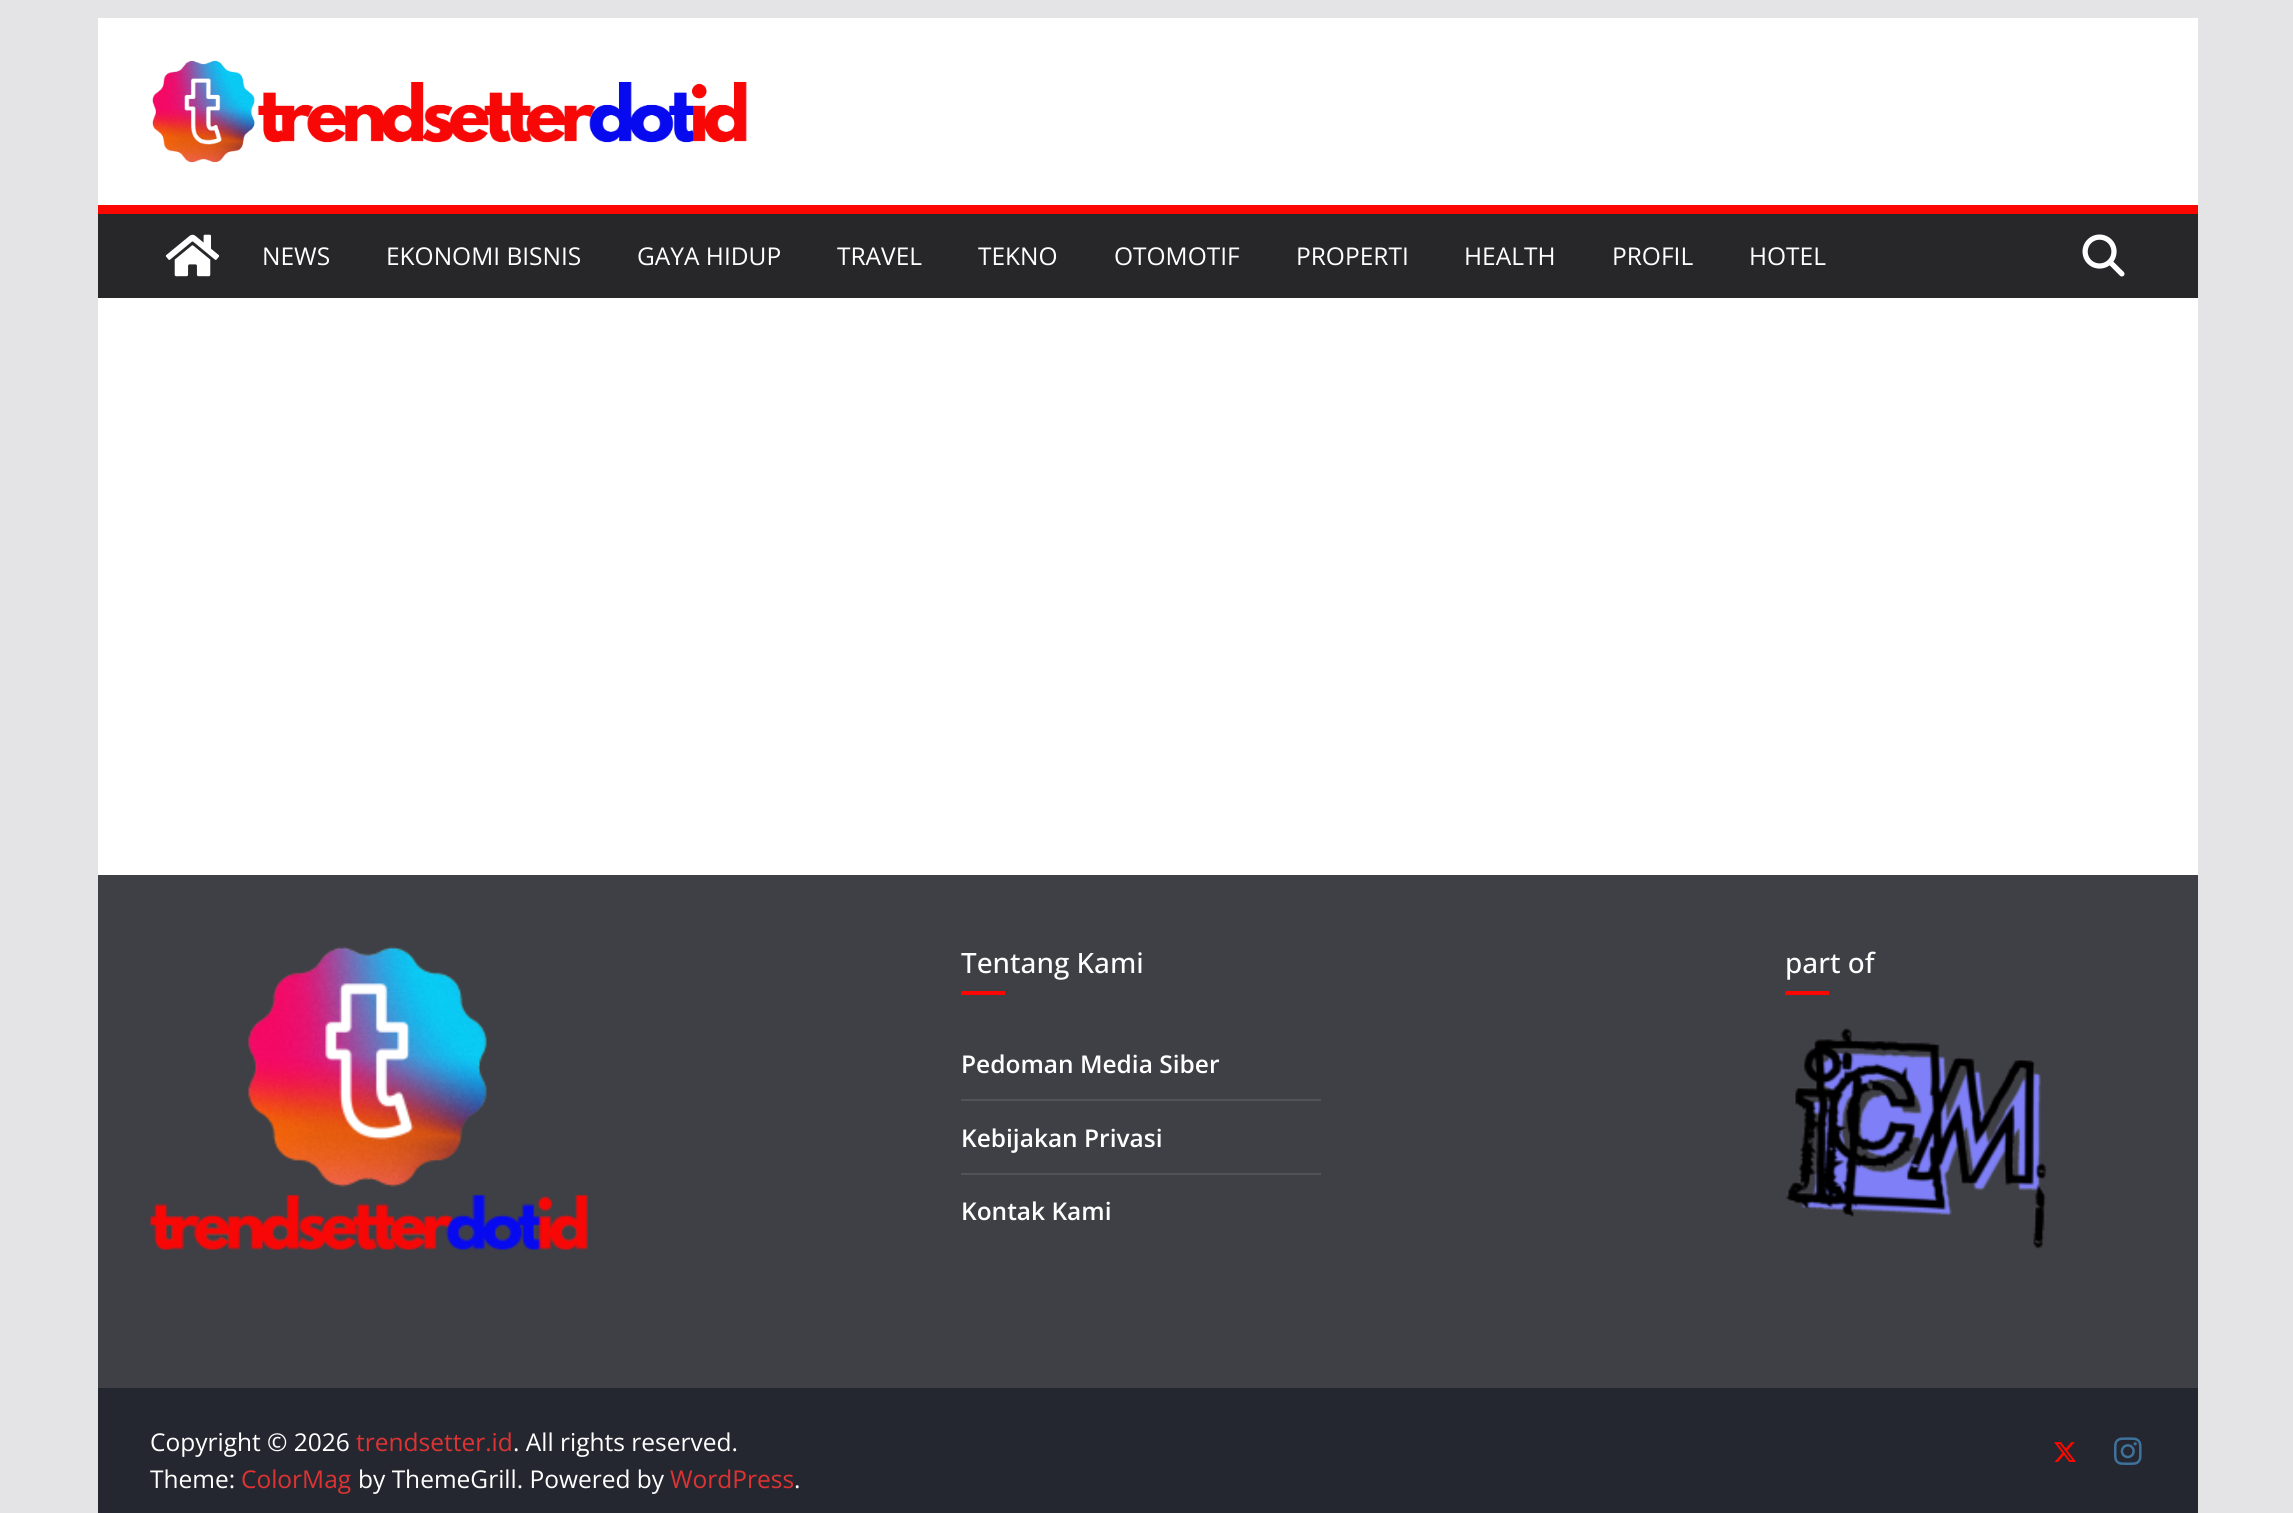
import math
import cairo


def paste(ctx, path, x, y, w, h):
	ctx.save()
	ctx.set_source_surface(cairo.ImageSurface.create_from_png(path), x, y)
	ctx.rectangle(x, y, w, h)
	ctx.fill()
	ctx.restore()

def draw(ctx):
	ctx.set_source_rgb(0.894, 0.894, 0.906)
	ctx.paint()
	ctx.set_source_rgb(1, 1, 1)
	ctx.rectangle(98, 18, 2100, 187)
	ctx.fill()
	paste(ctx, 'media/1.png', 152, 60, 595, 103)
	ctx.set_source_rgb(0.153, 0.153, 0.165)
	ctx.rectangle(98, 214, 2100, 84)
	ctx.fill()
	ctx.set_source_rgb(0.988, 0.031, 0)
	ctx.rectangle(98, 205, 2100, 9)
	ctx.fill()
	paste(ctx, 'media/2.png', 165, 234, 55, 43)
	ctx.select_font_face('Open Sans')
	ctx.set_font_size(24.5)
	ctx.set_source_rgb(1, 1, 1)
	for x, y, s in [
		(262, 265, 'NEWS'),
		(386, 265, 'EKONOMI BISNIS'),
		(637, 265, 'GAYA HIDUP'),
		(837, 265, 'TRAVEL'),
		(978, 265, 'TEKNO'),
		(1114, 265, 'OTOMOTIF'),
		(1296, 265, 'PROPERTI'),
		(1464, 265, 'HEALTH'),
		(1612, 265, 'PROFIL'),
		(1749, 265, 'HOTEL'),
	]:
		ctx.move_to(x, y)
		ctx.show_text(s)
	paste(ctx, 'media/3.png', 2082, 234, 43, 43)
	ctx.rectangle(98, 298, 2100, 577)
	ctx.fill()
	ctx.set_source_rgb(0.247, 0.247, 0.275)
	ctx.rectangle(98, 875, 2100, 513)
	ctx.fill()
	paste(ctx, 'media/4.png', 150, 946, 438, 304)
	ctx.select_font_face('Open Sans Medium')
	ctx.set_font_size(28)
	ctx.set_source_rgb(1, 1, 1)
	ctx.move_to(961, 973)
	ctx.show_text('Tentang Kami')
	ctx.set_source_rgb(0.988, 0.031, 0)
	ctx.rectangle(961, 991, 44, 4)
	ctx.fill()
	ctx.set_source_rgb(0.322, 0.322, 0.357)
	ctx.rectangle(961, 1099, 360, 2)
	ctx.fill()
	ctx.select_font_face('Open Sans SemiBold')
	ctx.set_font_size(24.5)
	ctx.set_source_rgb(1, 1, 1)
	ctx.move_to(961, 1073)
	ctx.show_text('Pedoman Media Siber')
	ctx.set_source_rgb(0.322, 0.322, 0.357)
	ctx.rectangle(961, 1173, 360, 2)
	ctx.fill()
	ctx.set_source_rgb(1, 1, 1)
	ctx.move_to(961, 1147)
	ctx.show_text('Kebijakan Privasi')
	ctx.move_to(961, 1220)
	ctx.show_text('Kontak Kami')
	ctx.select_font_face('Open Sans Medium')
	ctx.set_font_size(28)
	ctx.move_to(1785, 973)
	ctx.show_text('part of')
	ctx.set_source_rgb(0.988, 0.031, 0)
	ctx.rectangle(1785, 991, 44, 4)
	ctx.fill()
	paste(ctx, 'media/5.png', 1786, 1028, 261, 221)
	ctx.set_source_rgb(0.145, 0.153, 0.188)
	ctx.rectangle(98, 1388, 2100, 125)
	ctx.fill()
	ctx.select_font_face('Open Sans')
	ctx.set_font_size(24.5)
	ctx.set_source_rgb(1, 1, 1)
	ctx.move_to(150, 1451)
	ctx.show_text('Copyright © 2026')
	ctx.set_source_rgb(0.867, 0.2, 0.2)
	ctx.move_to(356, 1451)
	ctx.show_text('trendsetter.id')
	ctx.set_source_rgb(1, 1, 1)
	ctx.move_to(513, 1451)
	ctx.show_text('. All rights reserved.')
	ctx.move_to(150, 1488)
	ctx.show_text('Theme:')
	ctx.set_source_rgb(0.867, 0.2, 0.2)
	ctx.move_to(241, 1488)
	ctx.show_text('ColorMag')
	ctx.set_source_rgb(1, 1, 1)
	ctx.move_to(358, 1488)
	ctx.show_text('by ThemeGrill. Powered by')
	ctx.set_source_rgb(0.867, 0.2, 0.2)
	ctx.move_to(670, 1488)
	ctx.show_text('WordPress')
	ctx.set_source_rgb(1, 1, 1)
	ctx.move_to(794, 1488)
	ctx.show_text('.')
	paste(ctx, 'media/6.png', 2054, 1442, 22, 20)
	paste(ctx, 'media/7.png', 2114, 1437, 28, 28)


surface = cairo.ImageSurface(cairo.FORMAT_RGB24, 2293, 1513)
ctx = cairo.Context(surface)
options = cairo.FontOptions()
options.set_hint_metrics(cairo.HINT_METRICS_OFF)
options.set_hint_style(cairo.HINT_STYLE_NONE)
ctx.set_font_options(options)
ctx.set_miter_limit(4)
draw(ctx)
surface.write_to_png('image.png')
